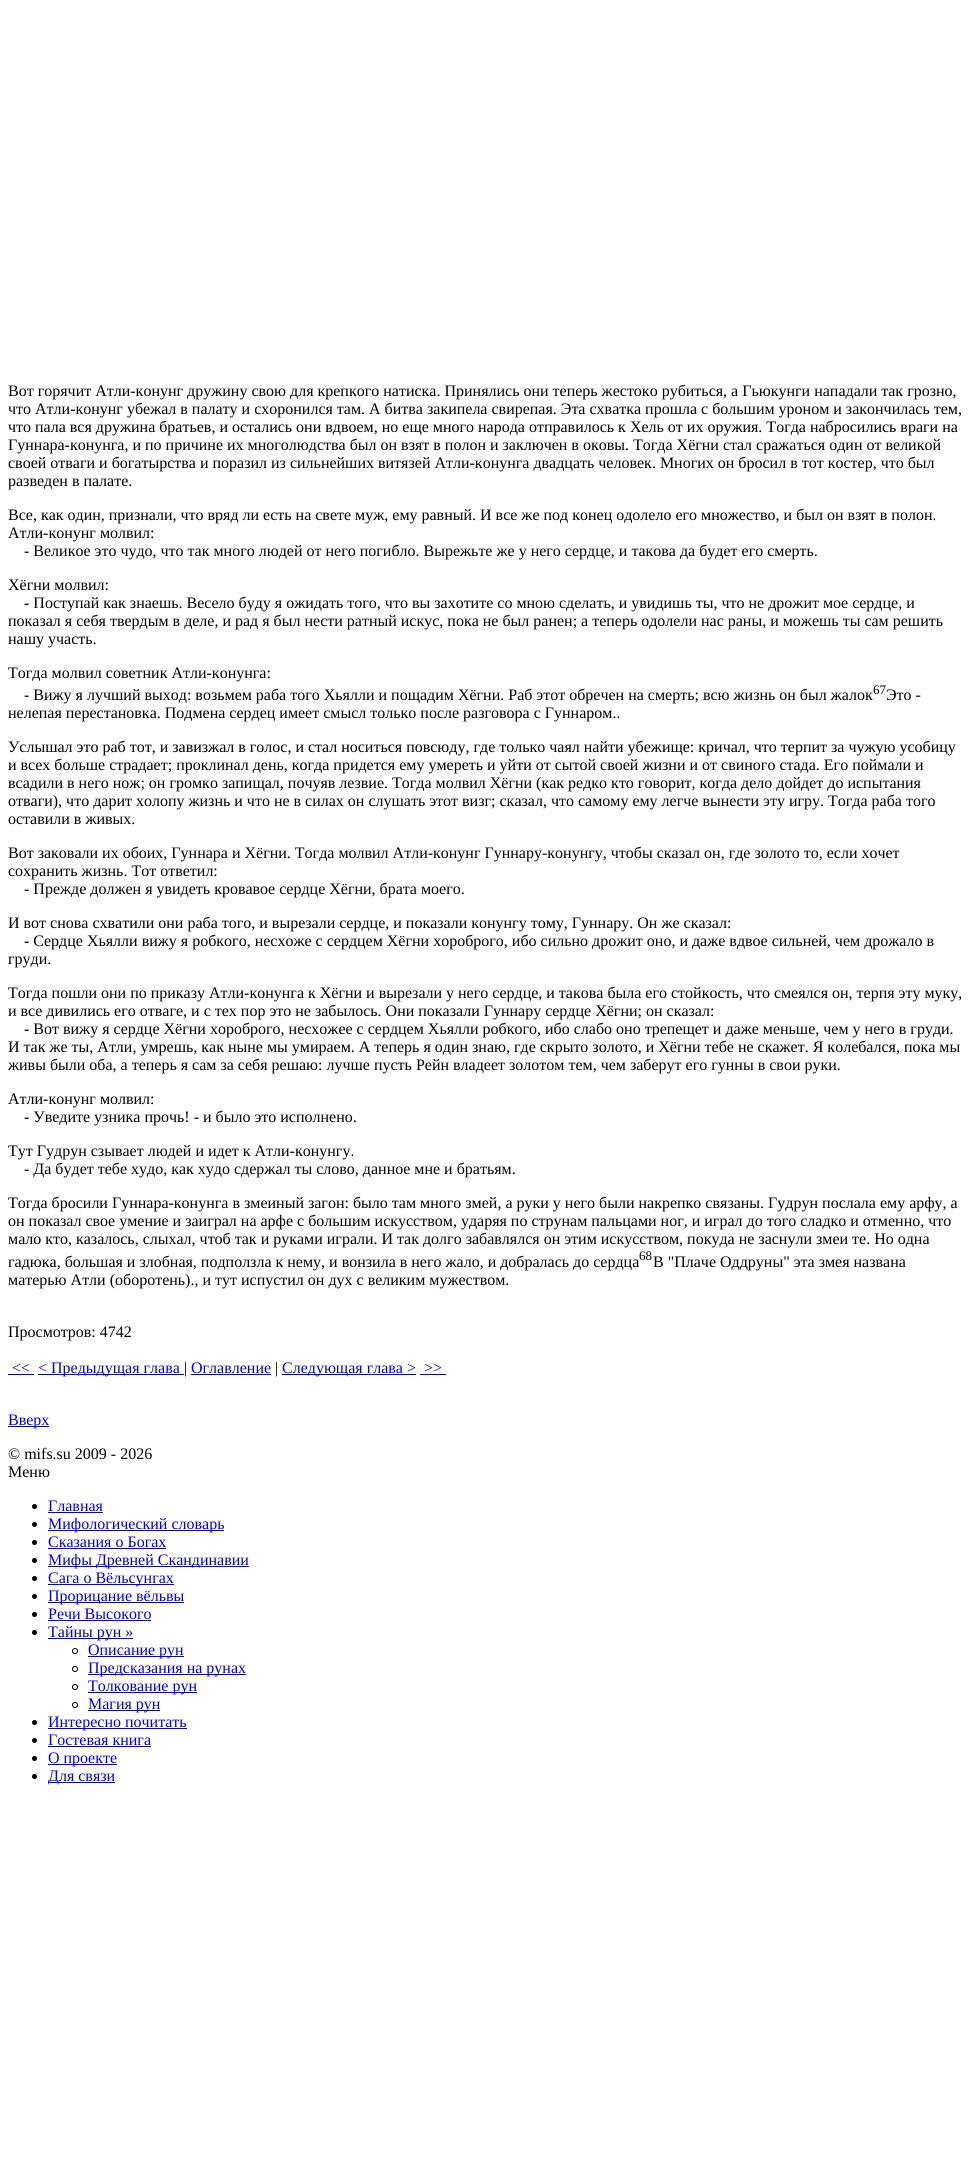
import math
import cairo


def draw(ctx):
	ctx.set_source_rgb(1, 1, 1)
	ctx.paint()
	ctx.select_font_face('Liberation Serif')
	ctx.set_font_size(16)
	ctx.set_source_rgb(0, 0, 0)
	for x, y, s in [
		(8, 396, 'Вот горячит Атли-конунг дружину свою для крепкого натиска. Принялись они теперь жестоко рубиться, а Гьюкунги нападали так грозно,'),
		(8, 414, 'что Атли-конунг убежал в палату и схоронился там. А битва закипела свирепая. Эта схватка прошла с большим уроном и закончилась тем,'),
		(8, 432, 'что пала вся дружина братьев, и остались они вдвоем, но еще много народа отправилось к Хель от их оружия. Тогда набросились враги на'),
		(8, 450, 'Гуннара-конунга, и по причине их многолюдства был он взят в полон и заключен в оковы. Тогда Хёгни стал сражаться один от великой'),
		(8, 468, 'своей отваги и богатырства и поразил из сильнейших витязей Атли-конунга двадцать человек. Многих он бросил в тот костер, что был'),
		(8, 486, 'разведен в палате.'),
		(8, 520, 'Все, как один, признали, что вряд ли есть на свете муж, ему равный. И все же под конец одолело его множество, и был он взят в полон.'),
		(8, 538, 'Атли-конунг молвил:'),
		(24, 556, '- Великое это чудо, что так много людей от него погибло. Вырежьте же у него сердце, и такова да будет его смерть.'),
		(8, 590, 'Хёгни молвил:'),
		(24, 608, '- Поступай как знаешь. Весело буду я ожидать того, что вы захотите со мною сделать, и увидишь ты, что не дрожит мое сердце, и'),
		(8, 626, 'показал я себя твердым в деле, и рад я был нести ратный искус, пока не был ранен; а теперь одолели нас раны, и можешь ты сам решить'),
		(8, 644, 'нашу участь.'),
		(8, 678, 'Тогда молвил советник Атли-конунга:'),
		(24, 700, '- Вижу я лучший выход: возьмем раба того Хьялли и пощадим Хёгни. Раб этот обречен на смерть; всю жизнь он был жалок'),
	]:
		ctx.move_to(x, y)
		ctx.show_text(s)
	ctx.set_font_size(13)
	ctx.move_to(873, 694)
	ctx.show_text('67')
	ctx.set_font_size(16)
	for x, y, s in [
		(886, 700, 'Это -'),
		(8, 718, 'нелепая перестановка. Подмена сердец имеет смысл только после разговора с Гуннаром..'),
		(8, 752, 'Услышал это раб тот, и завизжал в голос, и стал носиться повсюду, где только чаял найти убежище: кричал, что терпит за чужую усобицу'),
		(8, 770, 'и всех больше страдает; проклинал день, когда придется ему умереть и уйти от сытой своей жизни и от свиного стада. Его поймали и'),
		(8, 788, 'всадили в него нож; он громко запищал, почуяв лезвие. Тогда молвил Хёгни (как редко кто говорит, когда дело дойдет до испытания'),
		(8, 806, 'отваги), что дарит холопу жизнь и что не в силах он слушать этот визг; сказал, что самому ему легче вынести эту игру. Тогда раба того'),
		(8, 824, 'оставили в живых.'),
		(8, 858, 'Вот заковали их обоих, Гуннара и Хёгни. Тогда молвил Атли-конунг Гуннару-конунгу, чтобы сказал он, где золото то, если хочет'),
		(8, 876, 'сохранить жизнь. Тот ответил:'),
		(24, 894, '- Прежде должен я увидеть кровавое сердце Хёгни, брата моего.'),
		(8, 928, 'И вот снова схватили они раба того, и вырезали сердце, и показали конунгу тому, Гуннару. Он же сказал:'),
		(24, 946, '- Сердце Хьялли вижу я робкого, несхоже с сердцем Хёгни хороброго, ибо сильно дрожит оно, и даже вдвое сильней, чем дрожало в'),
		(8, 964, 'груди.'),
		(8, 998, 'Тогда пошли они по приказу Атли-конунга к Хёгни и вырезали у него сердце, и такова была его стойкость, что смеялся он, терпя эту муку,'),
		(8, 1016, 'и все дивились его отваге, и с тех пор это не забылось. Они показали Гуннару сердце Хёгни; он сказал:'),
		(24, 1034, '- Вот вижу я сердце Хёгни хороброго, несхожее с сердцем Хьялли робкого, ибо слабо оно трепещет и даже меньше, чем у него в груди.'),
		(8, 1052, 'И так же ты, Атли, умрешь, как ныне мы умираем. А теперь я один знаю, где скрыто золото, и Хёгни тебе не скажет. Я колебался, пока мы'),
		(8, 1070, 'живы были оба, а теперь я сам за себя решаю: лучше пусть Рейн владеет золотом тем, чем заберут его гунны в свои руки.'),
		(8, 1104, 'Атли-конунг молвил:'),
		(24, 1122, '- Уведите узника прочь! - и было это исполнено.'),
		(8, 1156, 'Тут Гудрун сзывает людей и идет к Атли-конунгу.'),
		(24, 1174, '- Да будет тебе худо, как худо сдержал ты слово, данное мне и братьям.'),
		(8, 1208, 'Тогда бросили Гуннара-конунга в змеиный загон: было там много змей, а руки у него были накрепко связаны. Гудрун послала ему арфу, а'),
		(8, 1226, 'он показал свое умение и заиграл на арфе с большим искусством, ударяя по струнам пальцами ног, и играл до того сладко и отменно, что'),
		(8, 1244, 'мало кто, казалось, слыхал, чтоб так и руками играли. И так долго забавлялся он этим искусством, покуда не заснули змеи те. Но одна'),
		(8, 1267, 'гадюка, большая и злобная, подползла к нему, и вонзила в него жало, и добралась до сердца'),
	]:
		ctx.move_to(x, y)
		ctx.show_text(s)
	ctx.set_font_size(13)
	ctx.move_to(639, 1260)
	ctx.show_text('68')
	ctx.set_font_size(16)
	for x, y, s in [
		(653, 1267, 'В "Плаче Оддруны" эта змея названа'),
		(8, 1285, 'матерью Атли (оборотень)., и тут испустил он дух с великим мужеством.'),
		(8, 1337, 'Просмотров: 4742'),
	]:
		ctx.move_to(x, y)
		ctx.show_text(s)
	ctx.set_source_rgb(0, 0, 0.933)
	ctx.move_to(12, 1373)
	ctx.show_text('<<')
	ctx.rectangle(8, 1374, 26, 1)
	ctx.fill()
	ctx.rectangle(38, 1374, 146, 1)
	ctx.fill()
	ctx.move_to(38, 1373)
	ctx.show_text('< Предыдущая глава')
	ctx.set_source_rgb(0, 0, 0)
	ctx.move_to(184, 1373)
	ctx.show_text('|')
	ctx.set_source_rgb(0, 0, 0.933)
	ctx.move_to(191, 1373)
	ctx.show_text('Оглавление')
	ctx.rectangle(191, 1374, 80, 1)
	ctx.fill()
	ctx.set_source_rgb(0, 0, 0)
	ctx.move_to(275, 1373)
	ctx.show_text('|')
	ctx.set_source_rgb(0, 0, 0.933)
	ctx.rectangle(282, 1374, 134, 1)
	ctx.fill()
	ctx.move_to(282, 1373)
	ctx.show_text('Следующая глава >')
	ctx.move_to(424, 1373)
	ctx.show_text('>>')
	ctx.rectangle(420, 1374, 26, 1)
	ctx.fill()
	ctx.rectangle(8, 1426, 41, 1)
	ctx.fill()
	ctx.move_to(8, 1425)
	ctx.show_text('Вверх')
	ctx.set_source_rgb(0, 0, 0)
	ctx.move_to(8, 1459)
	ctx.show_text('© mifs.su 2009 - 2026')
	ctx.move_to(8, 1477)
	ctx.show_text('Меню')
	ctx.new_path()
	ctx.arc(34.5, 1506.5, 2.5, 0, 2 * math.pi)
	ctx.fill()
	ctx.set_source_rgb(0, 0, 0.933)
	ctx.move_to(48, 1511)
	ctx.show_text('Главная')
	ctx.rectangle(48, 1512, 55, 1)
	ctx.fill()
	ctx.set_source_rgb(0, 0, 0)
	ctx.arc(34.5, 1524.5, 2.5, 0, 2 * math.pi)
	ctx.fill()
	ctx.set_source_rgb(0, 0, 0.933)
	ctx.rectangle(48, 1530, 176, 1)
	ctx.fill()
	ctx.move_to(48, 1529)
	ctx.show_text('Мифологический словарь')
	ctx.set_source_rgb(0, 0, 0)
	ctx.new_path()
	ctx.arc(34.5, 1542.5, 2.5, 0, 2 * math.pi)
	ctx.fill()
	ctx.set_source_rgb(0, 0, 0.933)
	ctx.move_to(48, 1547)
	ctx.show_text('Сказания о Богах')
	ctx.rectangle(48, 1548, 118, 1)
	ctx.fill()
	ctx.set_source_rgb(0, 0, 0)
	ctx.arc(34.5, 1560.5, 2.5, 0, 2 * math.pi)
	ctx.fill()
	ctx.set_source_rgb(0, 0, 0.933)
	ctx.rectangle(48, 1566, 201, 1)
	ctx.fill()
	ctx.move_to(48, 1565)
	ctx.show_text('Мифы Древней Скандинавии')
	ctx.set_source_rgb(0, 0, 0)
	ctx.new_path()
	ctx.arc(34.5, 1578.5, 2.5, 0, 2 * math.pi)
	ctx.fill()
	ctx.set_source_rgb(0, 0, 0.933)
	ctx.rectangle(48, 1584, 126, 1)
	ctx.fill()
	ctx.move_to(48, 1583)
	ctx.show_text('Сага о Вёльсунгах')
	ctx.set_source_rgb(0, 0, 0)
	ctx.new_path()
	ctx.arc(34.5, 1596.5, 2.5, 0, 2 * math.pi)
	ctx.fill()
	ctx.set_source_rgb(0, 0, 0.933)
	ctx.rectangle(48, 1602, 136, 1)
	ctx.fill()
	ctx.move_to(48, 1601)
	ctx.show_text('Прорицание вёльвы')
	ctx.set_source_rgb(0, 0, 0)
	ctx.new_path()
	ctx.arc(34.5, 1614.5, 2.5, 0, 2 * math.pi)
	ctx.fill()
	ctx.set_source_rgb(0, 0, 0.933)
	ctx.move_to(48, 1619)
	ctx.show_text('Речи Высокого')
	ctx.rectangle(48, 1620, 103, 1)
	ctx.fill()
	ctx.set_source_rgb(0, 0, 0)
	ctx.arc(34.5, 1632.5, 2.5, 0, 2 * math.pi)
	ctx.fill()
	ctx.set_source_rgb(0, 0, 0.933)
	ctx.rectangle(48, 1638, 85, 1)
	ctx.fill()
	ctx.move_to(48, 1637)
	ctx.show_text('Тайны рун »')
	ctx.new_path()
	ctx.arc(75, 1651, 2.5, 0, 2 * math.pi)
	ctx.set_source_rgb(0, 0, 0)
	ctx.set_line_width(1)
	ctx.stroke()
	ctx.set_source_rgb(0, 0, 0.933)
	ctx.rectangle(88, 1656, 96, 1)
	ctx.fill()
	ctx.move_to(88, 1655)
	ctx.show_text('Описание рун')
	ctx.new_path()
	ctx.arc(75, 1669, 2.5, 0, 2 * math.pi)
	ctx.set_source_rgb(0, 0, 0)
	ctx.stroke()
	ctx.set_source_rgb(0, 0, 0.933)
	ctx.rectangle(88, 1674, 158, 1)
	ctx.fill()
	ctx.move_to(88, 1673)
	ctx.show_text('Предсказания на рунах')
	ctx.new_path()
	ctx.arc(75, 1687, 2.5, 0, 2 * math.pi)
	ctx.set_source_rgb(0, 0, 0)
	ctx.stroke()
	ctx.set_source_rgb(0, 0, 0.933)
	ctx.rectangle(88, 1692, 109, 1)
	ctx.fill()
	ctx.move_to(88, 1691)
	ctx.show_text('Толкование рун')
	ctx.new_path()
	ctx.arc(75, 1705, 2.5, 0, 2 * math.pi)
	ctx.set_source_rgb(0, 0, 0)
	ctx.stroke()
	ctx.set_source_rgb(0, 0, 0.933)
	ctx.rectangle(88, 1710, 72, 1)
	ctx.fill()
	ctx.move_to(88, 1709)
	ctx.show_text('Магия рун')
	ctx.set_source_rgb(0, 0, 0)
	ctx.new_path()
	ctx.arc(34.5, 1722.5, 2.5, 0, 2 * math.pi)
	ctx.fill()
	ctx.set_source_rgb(0, 0, 0.933)
	ctx.rectangle(48, 1728, 139, 1)
	ctx.fill()
	ctx.move_to(48, 1727)
	ctx.show_text('Интересно почитать')
	ctx.set_source_rgb(0, 0, 0)
	ctx.new_path()
	ctx.arc(34.5, 1740.5, 2.5, 0, 2 * math.pi)
	ctx.fill()
	ctx.set_source_rgb(0, 0, 0.933)
	ctx.move_to(48, 1745)
	ctx.show_text('Гостевая книга')
	ctx.rectangle(48, 1746, 103, 1)
	ctx.fill()
	ctx.set_source_rgb(0, 0, 0)
	ctx.arc(34.5, 1758.5, 2.5, 0, 2 * math.pi)
	ctx.fill()
	ctx.set_source_rgb(0, 0, 0.933)
	ctx.rectangle(48, 1764, 69, 1)
	ctx.fill()
	ctx.move_to(48, 1763)
	ctx.show_text('О проекте')
	ctx.set_source_rgb(0, 0, 0)
	ctx.new_path()
	ctx.arc(34.5, 1776.5, 2.5, 0, 2 * math.pi)
	ctx.fill()
	ctx.set_source_rgb(0, 0, 0.933)
	ctx.rectangle(48, 1782, 67, 1)
	ctx.fill()
	ctx.move_to(48, 1781)
	ctx.show_text('Для связи')


surface = cairo.ImageSurface(cairo.FORMAT_RGB24, 971, 2159)
ctx = cairo.Context(surface)
options = cairo.FontOptions()
options.set_hint_metrics(cairo.HINT_METRICS_OFF)
options.set_hint_style(cairo.HINT_STYLE_NONE)
ctx.set_font_options(options)
ctx.set_miter_limit(4)
draw(ctx)
surface.write_to_png('image.png')
